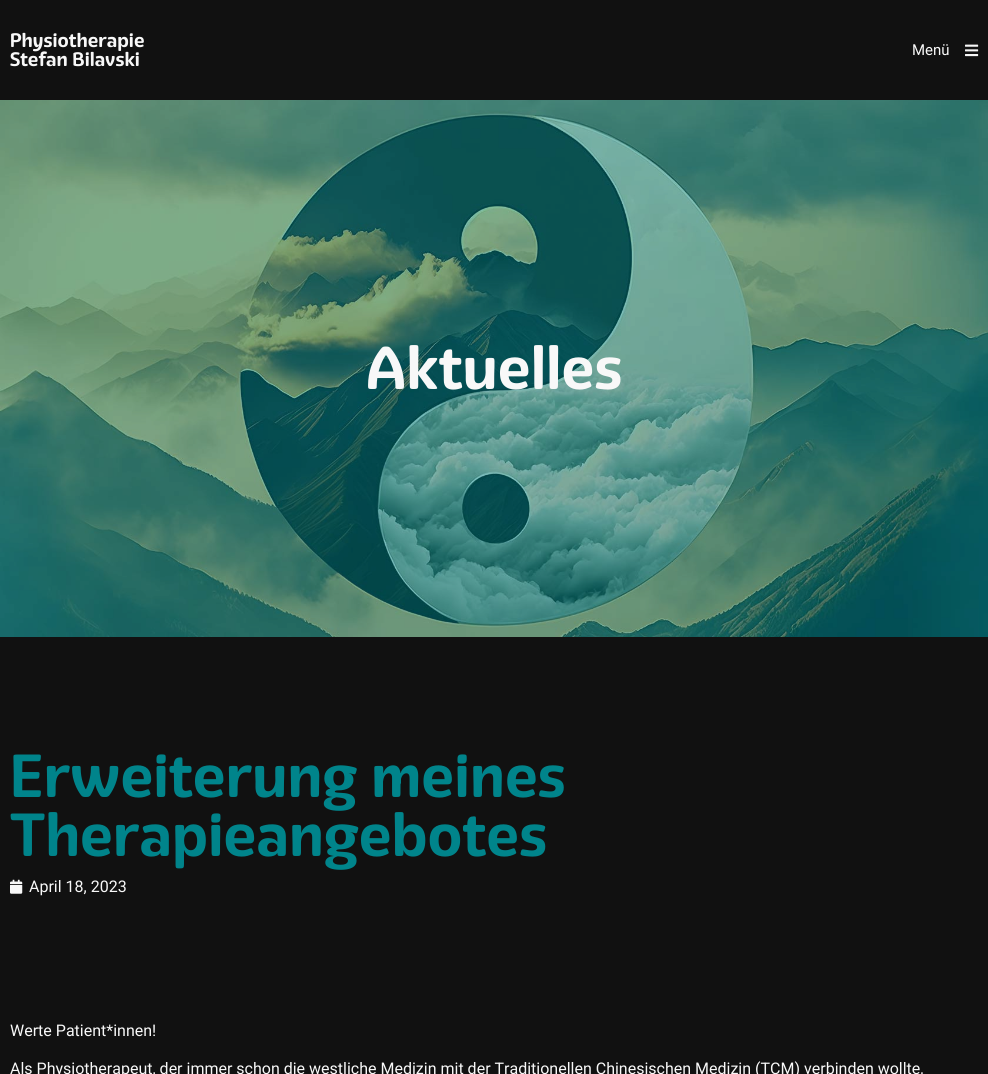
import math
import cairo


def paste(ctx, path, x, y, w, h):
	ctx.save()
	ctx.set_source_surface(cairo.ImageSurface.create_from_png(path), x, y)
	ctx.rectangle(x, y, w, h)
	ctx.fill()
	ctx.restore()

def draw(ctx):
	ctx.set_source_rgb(0.067, 0.067, 0.067)
	ctx.paint()
	ctx.select_font_face('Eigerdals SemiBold')
	ctx.set_font_size(19)
	ctx.set_source_rgb(0.969, 0.969, 0.969)
	ctx.move_to(10, 47)
	ctx.show_text('Physiotherapie')
	ctx.move_to(10, 66)
	ctx.show_text('Stefan Bilavski')
	ctx.select_font_face('Roboto')
	ctx.set_font_size(15)
	ctx.move_to(912, 55)
	ctx.show_text('Menü')
	paste(ctx, 'media/1.png', 965, 44, 14, 13)
	paste(ctx, 'media/2.png', 0, 100, 988, 537)
	ctx.select_font_face('Eigerdals SemiBold')
	ctx.set_font_size(59)
	ctx.move_to(366, 389)
	ctx.show_text('Aktuelles')
	ctx.set_source_rgb(0, 0.518, 0.545)
	ctx.move_to(10, 797)
	ctx.show_text('Erweiterung meines')
	ctx.move_to(10, 856)
	ctx.show_text('Therapieangebotes')
	paste(ctx, 'media/3.png', 10, 879, 13, 15)
	ctx.select_font_face('Roboto')
	ctx.set_font_size(16)
	ctx.set_source_rgb(0.969, 0.969, 0.969)
	for x, y, s in [
		(29, 892, 'April 18, 2023'),
		(10, 1036, 'Werte Patient*innen!'),
		(10, 1074, 'Als Physiotherapeut, der immer schon die westliche Medizin mit der Traditionellen Chinesischen Medizin (TCM) verbinden wollte,'),
	]:
		ctx.move_to(x, y)
		ctx.show_text(s)


surface = cairo.ImageSurface(cairo.FORMAT_RGB24, 988, 1074)
ctx = cairo.Context(surface)
options = cairo.FontOptions()
options.set_hint_metrics(cairo.HINT_METRICS_OFF)
options.set_hint_style(cairo.HINT_STYLE_NONE)
ctx.set_font_options(options)
ctx.set_miter_limit(4)
draw(ctx)
surface.write_to_png('image.png')
